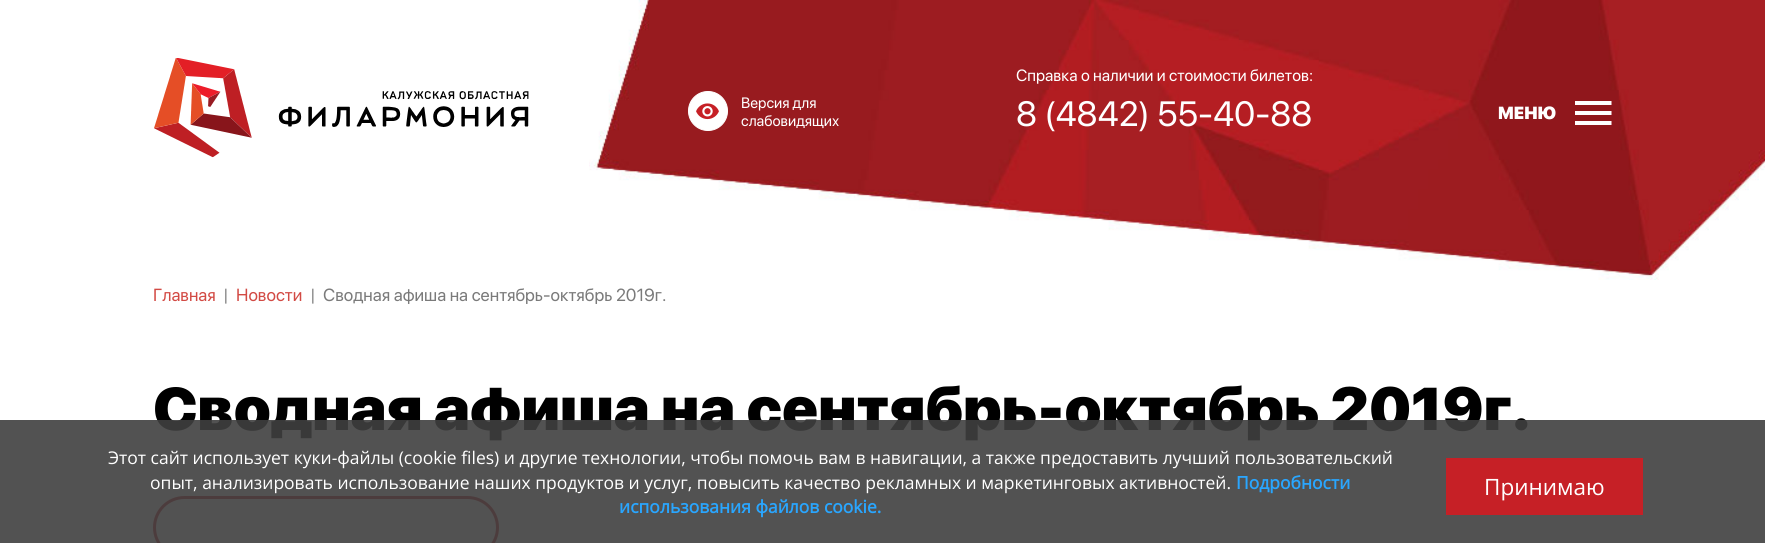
import math
import cairo


def round_path(ctx, x, y, w, h, r):
	ctx.new_sub_path()
	for i, (u, v) in enumerate([(x + w - r, y + h - r), (x + r, y + h - r), (x + r, y + r), (x + w - r, y + r)]):
		ctx.arc(u, v, r, i * math.pi / 2, (i + 1) * math.pi / 2)
	ctx.close_path()

def paste(ctx, path, x, y, w, h):
	ctx.save()
	ctx.set_source_surface(cairo.ImageSurface.create_from_png(path), x, y)
	ctx.rectangle(x, y, w, h)
	ctx.fill()
	ctx.restore()

def draw(ctx):
	ctx.set_source_rgb(1, 1, 1)
	ctx.paint()
	paste(ctx, 'media/1.png', 589, 0, 1176, 280)
	paste(ctx, 'media/2.png', 154, 58, 375, 100)
	ctx.set_source_rgb(1, 1, 1)
	ctx.arc(708, 111, 19.5, 0, 2 * math.pi)
	ctx.fill_preserve()
	ctx.set_line_width(1)
	ctx.stroke()
	paste(ctx, 'media/3.png', 696, 103, 23, 17)
	ctx.select_font_face('SF Pro Display')
	ctx.set_font_size(15)
	ctx.move_to(741, 108)
	ctx.show_text('Версия для')
	ctx.move_to(741, 126)
	ctx.show_text('слабовидящих')
	ctx.set_font_size(16.25)
	ctx.move_to(1016, 81)
	ctx.show_text('Справка о наличии и стоимости билетов:')
	ctx.set_font_size(35)
	ctx.move_to(1016, 126)
	ctx.show_text('8 (4842) 55-40-88')
	ctx.select_font_face('SF Pro Display Black')
	ctx.set_font_size(17.5)
	ctx.move_to(1498, 119)
	ctx.show_text('МЕНЮ')
	ctx.new_path()
	ctx.move_to(1575, 121)
	ctx.line_to(1611.5, 121)
	ctx.line_to(1611.5, 125)
	ctx.line_to(1575, 125)
	ctx.close_path()
	ctx.move_to(1575, 111)
	ctx.line_to(1611.5, 111)
	ctx.line_to(1611.5, 115)
	ctx.line_to(1575, 115)
	ctx.close_path()
	ctx.move_to(1575, 101)
	ctx.line_to(1611.5, 101)
	ctx.line_to(1611.5, 105)
	ctx.line_to(1575, 105)
	ctx.close_path()
	ctx.fill()
	ctx.select_font_face('SF Pro Display')
	ctx.set_source_rgb(0.824, 0.29, 0.267)
	ctx.move_to(153, 301)
	ctx.show_text('Главная')
	ctx.set_source_rgb(0.478, 0.478, 0.478)
	ctx.move_to(223, 301)
	ctx.show_text('|')
	ctx.set_source_rgb(0.824, 0.29, 0.267)
	ctx.move_to(236, 301)
	ctx.show_text('Новости')
	ctx.set_source_rgb(0.478, 0.478, 0.478)
	ctx.move_to(310, 301)
	ctx.show_text('|')
	ctx.move_to(323, 301)
	ctx.show_text('Сводная афиша на сентябрь-октябрь 2019г.')
	ctx.select_font_face('SF Pro Display Black')
	ctx.set_font_size(60)
	ctx.set_source_rgb(0, 0, 0)
	ctx.move_to(153, 430)
	ctx.show_text('Сводная афиша на сентябрь-октябрь 2019г.')
	round_path(ctx, 154.5, 497.5, 343, 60, 30)
	ctx.set_source_rgb(0.776, 0.125, 0.149)
	ctx.set_line_width(3)
	ctx.stroke()
	ctx.set_source_rgba(0.251, 0.251, 0.251, 0.9)
	ctx.rectangle(0, 420, 1765, 123)
	ctx.fill()
	ctx.select_font_face('Open Sans')
	ctx.set_font_size(17.5)
	ctx.set_source_rgb(1, 1, 1)
	ctx.move_to(108, 464)
	ctx.show_text('Этот сайт использует куки-файлы (cookie files) и другие технологии, чтобы помочь вам в навигации, а также предоставить лучший пользовательский')
	ctx.move_to(150, 489)
	ctx.show_text('опыт, анализировать использование наших продуктов и услуг, повысить качество рекламных и маркетинговых активностей.')
	ctx.select_font_face('Open Sans', cairo.FONT_SLANT_NORMAL, cairo.FONT_WEIGHT_BOLD)
	ctx.set_source_rgb(0.161, 0.651, 1)
	ctx.move_to(1236, 489)
	ctx.show_text('Подробности')
	ctx.move_to(619, 513)
	ctx.show_text('использования файлов cookie.')
	ctx.set_source_rgb(0.776, 0.125, 0.149)
	ctx.rectangle(1446, 458, 197, 57)
	ctx.fill()
	ctx.select_font_face('Open Sans')
	ctx.set_font_size(22.5)
	ctx.set_source_rgb(1, 1, 1)
	ctx.move_to(1484, 495)
	ctx.show_text('Принимаю')


surface = cairo.ImageSurface(cairo.FORMAT_RGB24, 1765, 543)
ctx = cairo.Context(surface)
options = cairo.FontOptions()
options.set_hint_metrics(cairo.HINT_METRICS_OFF)
options.set_hint_style(cairo.HINT_STYLE_NONE)
ctx.set_font_options(options)
ctx.set_miter_limit(4)
draw(ctx)
surface.write_to_png('image.png')
